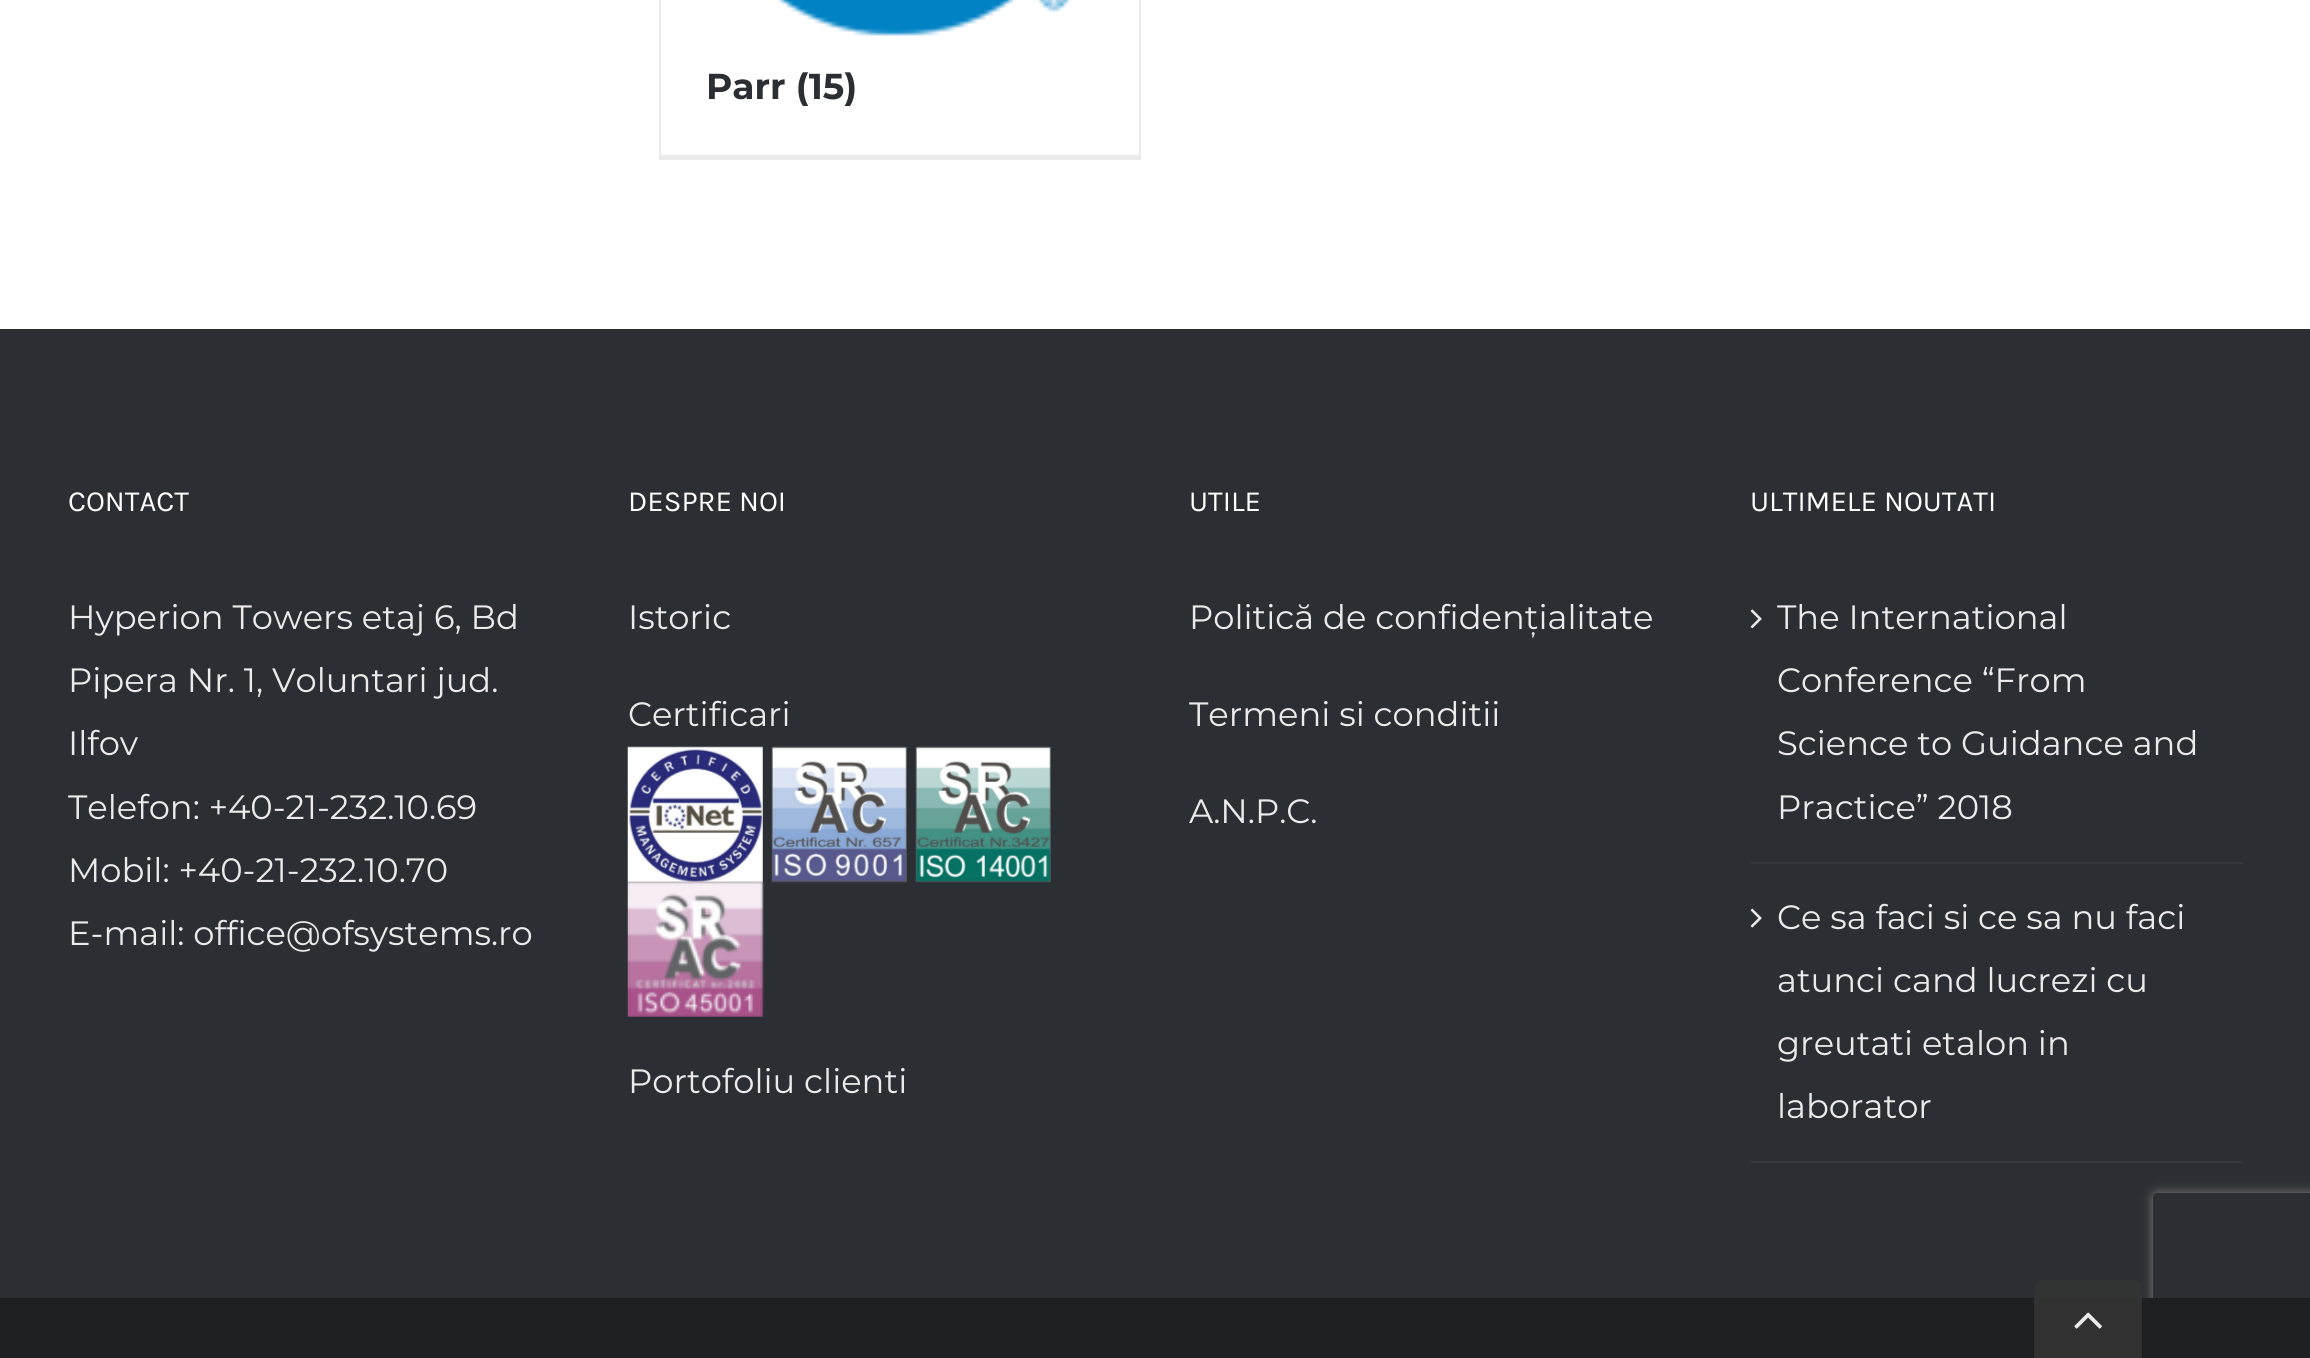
import math
import cairo


def round_path(ctx, x, y, w, h, r):
	ctx.new_sub_path()
	for i, (u, v) in enumerate([(x + w - r, y + h - r), (x + r, y + h - r), (x + r, y + r), (x + w - r, y + r)]):
		ctx.arc(u, v, r, i * math.pi / 2, (i + 1) * math.pi / 2)
	ctx.close_path()

def blur_box(ctx, x, y, w, h, r, blur, alpha):
	ctx.push_group_with_content(cairo.CONTENT_ALPHA)
	ctx.set_operator(cairo.OPERATOR_SOURCE)
	for i in range(15, -16, -2):
		e = blur * i / 6
		if min(w, h) + 2 * e > 0:
			ctx.set_source_rgba(0, 0, 0, alpha * math.erfc((i - 1) / 8.5) / 2)
			round_path(ctx, x - e, y - e, w + 2 * e, h + 2 * e, max(0, min(r + e + blur * .6, min(w, h) / 2 + e)))
			ctx.fill()
	ctx.mask(ctx.pop_group())

def paste(ctx, path, x, y, w, h):
	ctx.save()
	ctx.set_source_surface(cairo.ImageSurface.create_from_png(path), x, y)
	ctx.rectangle(x, y, w, h)
	ctx.fill()
	ctx.restore()

def draw(ctx):
	ctx.set_source_rgb(1, 1, 1)
	ctx.paint()
	ctx.set_source_rgb(0.918, 0.918, 0.918)
	ctx.rectangle(1139, 0, 2, 160)
	ctx.rectangle(659, 155, 482, 5)
	ctx.rectangle(659, 0, 2, 160)
	ctx.fill()
	paste(ctx, 'media/1.png', 777, 0, 293, 36)
	ctx.select_font_face('Montserrat', cairo.FONT_SLANT_NORMAL, cairo.FONT_WEIGHT_BOLD)
	ctx.set_font_size(36)
	ctx.set_source_rgb(0.169, 0.18, 0.196)
	ctx.move_to(706, 99)
	ctx.show_text('Parr (15)')
	ctx.rectangle(0, 329, 2310, 969)
	ctx.fill()
	ctx.select_font_face('Karla')
	ctx.set_font_size(29.25)
	ctx.set_source_rgb(1, 1, 1)
	ctx.move_to(68, 511)
	ctx.show_text('CONTACT')
	ctx.select_font_face('Montserrat')
	ctx.set_font_size(33.75)
	ctx.set_source_rgb(0.918, 0.918, 0.918)
	for x, y, s in [
		(68, 629, 'Hyperion Towers etaj 6, Bd'),
		(68, 692, 'Pipera Nr. 1, Voluntari jud.'),
		(68, 755, 'Ilfov'),
		(68, 819, 'Telefon: +40-21-232.10.69'),
		(68, 882, 'Mobil: +40-21-232.10.70'),
		(68, 945, 'E-mail: office@ofsystems.ro'),
	]:
		ctx.move_to(x, y)
		ctx.show_text(s)
	ctx.select_font_face('Karla')
	ctx.set_font_size(29.25)
	ctx.set_source_rgb(1, 1, 1)
	ctx.move_to(628, 511)
	ctx.show_text('DESPRE NOI')
	ctx.select_font_face('Montserrat')
	ctx.set_font_size(33.75)
	ctx.set_source_rgb(0.918, 0.918, 0.918)
	ctx.move_to(628, 629)
	ctx.show_text('Istoric')
	ctx.move_to(628, 726)
	ctx.show_text('Certificari')
	paste(ctx, 'media/2.png', 627, 746, 136, 137)
	paste(ctx, 'media/3.png', 771, 746, 136, 137)
	paste(ctx, 'media/4.png', 915, 746, 136, 137)
	paste(ctx, 'media/5.png', 627, 881, 137, 136)
	ctx.move_to(628, 1093)
	ctx.show_text('Portofoliu clienti')
	ctx.select_font_face('Karla')
	ctx.set_font_size(29.25)
	ctx.set_source_rgb(1, 1, 1)
	ctx.move_to(1189, 511)
	ctx.show_text('UTILE')
	ctx.select_font_face('Montserrat')
	ctx.set_font_size(33.75)
	ctx.set_source_rgb(0.918, 0.918, 0.918)
	for x, y, s in [
		(1189, 629, 'Politică de confidențialitate'),
		(1189, 726, 'Termeni si conditii'),
		(1189, 823, 'A.N.P.C.'),
	]:
		ctx.move_to(x, y)
		ctx.show_text(s)
	ctx.select_font_face('Karla')
	ctx.set_font_size(29.25)
	ctx.set_source_rgb(1, 1, 1)
	ctx.move_to(1750, 511)
	ctx.show_text('ULTIMELE NOUTATI')
	ctx.set_source_rgb(0.208, 0.22, 0.235)
	ctx.rectangle(1751, 862, 492, 2)
	ctx.fill()
	paste(ctx, 'media/6.png', 1750, 609, 12, 20)
	ctx.select_font_face('Montserrat')
	ctx.set_font_size(33.75)
	ctx.set_source_rgb(0.918, 0.918, 0.918)
	for x, y, s in [
		(1777, 629, 'The International'),
		(1777, 692, 'Conference “From'),
		(1777, 755, 'Science to Guidance and'),
		(1777, 819, 'Practice” 2018'),
	]:
		ctx.move_to(x, y)
		ctx.show_text(s)
	ctx.set_source_rgb(0.208, 0.22, 0.235)
	ctx.rectangle(1751, 1161, 492, 2)
	ctx.fill()
	paste(ctx, 'media/7.png', 1750, 908, 12, 20)
	ctx.set_source_rgb(0.918, 0.918, 0.918)
	for x, y, s in [
		(1777, 929, 'Ce sa faci si ce sa nu faci'),
		(1777, 992, 'atunci cand lucrezi cu'),
		(1777, 1055, 'greutati etalon in'),
		(1777, 1118, 'laborator'),
	]:
		ctx.move_to(x, y)
		ctx.show_text(s)
	ctx.save()
	ctx.set_fill_rule(cairo.FILL_RULE_EVEN_ODD)
	ctx.new_path()
	ctx.move_to(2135, 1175)
	ctx.line_to(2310, 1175)
	ctx.line_to(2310, 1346)
	ctx.line_to(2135, 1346)
	ctx.close_path()
	ctx.move_to(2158, 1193)
	ctx.line_to(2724, 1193)
	ctx.curve_to(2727, 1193, 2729, 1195, 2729, 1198)
	ctx.line_to(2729, 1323)
	ctx.curve_to(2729, 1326, 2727, 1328, 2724, 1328)
	ctx.line_to(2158, 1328)
	ctx.curve_to(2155, 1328, 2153, 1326, 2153, 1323)
	ctx.line_to(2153, 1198)
	ctx.curve_to(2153, 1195, 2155, 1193, 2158, 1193)
	ctx.close_path()
	ctx.clip()
	ctx.set_source_rgb(0.502, 0.502, 0.502)
	blur_box(ctx, 2153, 1193, 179, 135, 5, 5.5, 1)
	ctx.restore()
	ctx.set_source_rgb(0.114, 0.122, 0.133)
	ctx.rectangle(0, 1298, 2310, 60)
	ctx.fill()
	ctx.set_source_rgba(0.2, 0.2, 0.2, 0.9)
	ctx.new_path()
	ctx.move_to(2043, 1280)
	ctx.line_to(2133, 1280)
	ctx.curve_to(2138, 1280, 2142, 1284, 2142, 1289)
	ctx.line_to(2142, 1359)
	ctx.line_to(2034, 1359)
	ctx.line_to(2034, 1289)
	ctx.curve_to(2034, 1284, 2038, 1280, 2043, 1280)
	ctx.close_path()
	ctx.fill()
	paste(ctx, 'media/8.png', 2074, 1312, 28, 17)


surface = cairo.ImageSurface(cairo.FORMAT_RGB24, 2310, 1358)
ctx = cairo.Context(surface)
options = cairo.FontOptions()
options.set_hint_metrics(cairo.HINT_METRICS_OFF)
options.set_hint_style(cairo.HINT_STYLE_NONE)
ctx.set_font_options(options)
ctx.set_miter_limit(4)
draw(ctx)
surface.write_to_png('image.png')
